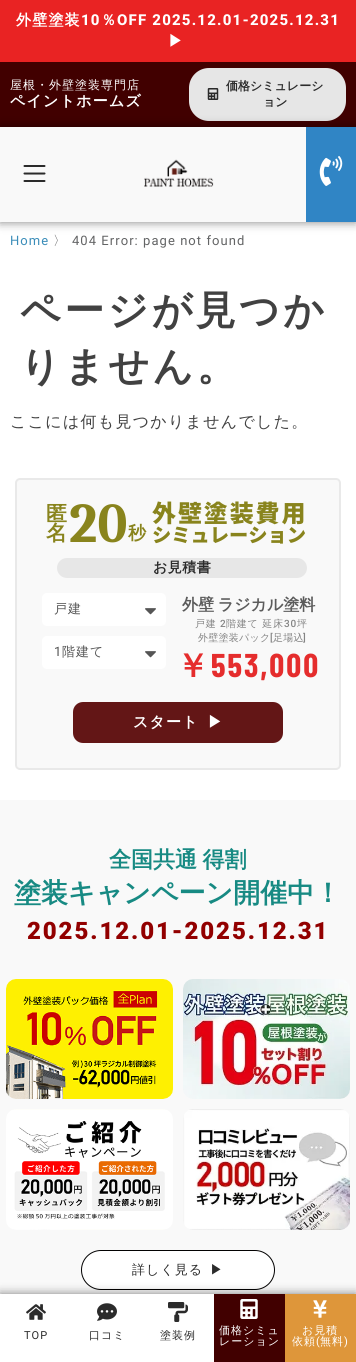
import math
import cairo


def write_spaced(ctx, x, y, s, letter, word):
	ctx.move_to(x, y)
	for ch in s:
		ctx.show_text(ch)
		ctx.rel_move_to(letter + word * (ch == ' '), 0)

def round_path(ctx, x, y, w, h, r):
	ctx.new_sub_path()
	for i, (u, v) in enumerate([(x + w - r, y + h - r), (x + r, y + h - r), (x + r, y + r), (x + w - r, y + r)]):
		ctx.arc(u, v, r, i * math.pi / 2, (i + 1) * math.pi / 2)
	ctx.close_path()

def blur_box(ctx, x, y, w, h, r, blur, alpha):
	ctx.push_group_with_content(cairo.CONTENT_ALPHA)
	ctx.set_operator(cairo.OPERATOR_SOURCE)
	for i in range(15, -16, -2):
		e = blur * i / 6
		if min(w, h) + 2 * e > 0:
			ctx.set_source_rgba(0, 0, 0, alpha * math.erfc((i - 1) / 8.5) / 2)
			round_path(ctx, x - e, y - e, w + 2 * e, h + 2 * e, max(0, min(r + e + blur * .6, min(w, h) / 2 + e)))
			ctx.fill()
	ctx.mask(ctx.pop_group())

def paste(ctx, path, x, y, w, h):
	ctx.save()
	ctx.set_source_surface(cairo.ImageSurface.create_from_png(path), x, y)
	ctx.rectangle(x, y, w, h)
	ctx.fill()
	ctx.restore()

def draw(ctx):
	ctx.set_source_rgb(1, 1, 1)
	ctx.paint()
	ctx.set_source_rgb(0.914, 0.137, 0.137)
	ctx.rectangle(0, 0, 356, 62)
	ctx.fill()
	ctx.select_font_face('WenQuanYi Zen Hei', cairo.FONT_SLANT_NORMAL, cairo.FONT_WEIGHT_BOLD)
	ctx.set_font_size(15)
	ctx.set_source_rgb(1, 1, 1)
	write_spaced(ctx, 16, 25, '外壁塗装', 1.2, 0)
	ctx.select_font_face('Roboto ExtraBold')
	write_spaced(ctx, 81, 25, '10', 1.2, 0)
	ctx.select_font_face('WenQuanYi Zen Hei', cairo.FONT_SLANT_NORMAL, cairo.FONT_WEIGHT_BOLD)
	write_spaced(ctx, 101, 25, '％', 1.2, 0)
	ctx.select_font_face('Roboto ExtraBold')
	write_spaced(ctx, 117, 25, 'OFF 2025.12.01-2025.12.31', 1.2, 0)
	ctx.select_font_face('WenQuanYi Zen Hei', cairo.FONT_SLANT_NORMAL, cairo.FONT_WEIGHT_BOLD)
	write_spaced(ctx, 168, 46, '▶', 1.2, 0)
	ctx.set_source_rgb(0.255, 0, 0)
	ctx.rectangle(0, 62, 356, 65)
	ctx.fill()
	ctx.select_font_face('WenQuanYi Zen Hei Medium')
	ctx.set_font_size(12)
	ctx.set_source_rgb(1, 1, 1)
	write_spaced(ctx, 10, 89, '屋根・外壁塗装専門店', 1, 0)
	ctx.select_font_face('WenQuanYi Zen Hei', cairo.FONT_SLANT_NORMAL, cairo.FONT_WEIGHT_BOLD)
	ctx.set_font_size(15)
	write_spaced(ctx, 10, 106, 'ペイントホームズ', 1.2, 0)
	ctx.set_source_rgb(0.902, 0.902, 0.902)
	round_path(ctx, 189, 68, 157, 53, 20)
	ctx.fill()
	paste(ctx, 'media/1.png', 207, 88, 12, 12)
	ctx.set_font_size(12)
	ctx.set_source_rgb(0.169, 0.169, 0.169)
	ctx.move_to(226, 90)
	ctx.show_text('価格シミュレーシ')
	ctx.move_to(263, 106)
	ctx.show_text('ョン')
	ctx.set_source_rgb(0, 0, 0)
	blur_box(ctx, 0, 127, 356, 95, 0, 5, 0.5)
	ctx.set_source_rgb(0.973, 0.973, 0.973)
	ctx.rectangle(0, 127, 306, 95)
	ctx.fill()
	paste(ctx, 'media/2.png', 23, 165, 23, 17)
	paste(ctx, 'media/3.png', 144, 159, 70, 28)
	ctx.set_source_rgb(0.188, 0.522, 0.773)
	ctx.rectangle(306, 127, 50, 95)
	ctx.fill()
	paste(ctx, 'media/4.png', 319, 156, 24, 30)
	ctx.select_font_face('Roboto')
	ctx.set_font_size(13)
	ctx.set_source_rgb(0.231, 0.553, 0.725)
	write_spaced(ctx, 10, 245, 'Home', 1.05, 0)
	ctx.select_font_face('WenQuanYi Zen Hei Medium')
	ctx.set_source_rgb(0.388, 0.392, 0.396)
	write_spaced(ctx, 53, 245, '〉', 1.05, 0)
	ctx.select_font_face('Roboto')
	write_spaced(ctx, 72, 245, '404 Error: page not found', 1.05, 0)
	ctx.select_font_face('WenQuanYi Zen Hei', cairo.FONT_SLANT_NORMAL, cairo.FONT_WEIGHT_BOLD)
	ctx.set_font_size(40)
	ctx.set_source_rgb(0.255, 0.255, 0.255)
	write_spaced(ctx, 20, 324, 'ページが見つか', 3.25, 0)
	write_spaced(ctx, 20, 380, 'りません。', 3.25, 0)
	ctx.select_font_face('WenQuanYi Zen Hei Medium')
	ctx.set_font_size(16)
	write_spaced(ctx, 10, 427, 'ここには何も見つかりませんでした。', 1.25, 0)
	ctx.set_source_rgb(0.973, 0.973, 0.973)
	round_path(ctx, 16, 479, 324, 290, 4)
	ctx.fill_preserve()
	ctx.set_source_rgb(0.914, 0.914, 0.914)
	ctx.stroke()
	ctx.select_font_face('WenQuanYi Zen Hei', cairo.FONT_SLANT_NORMAL, cairo.FONT_WEIGHT_BOLD)
	ctx.set_font_size(21)
	ctx.set_source_rgb(0.537, 0.518, 0.114)
	write_spaced(ctx, 46, 521, '匿', 1, 0)
	write_spaced(ctx, 46, 540, '名', 1, 0)
	ctx.select_font_face('Caladea', cairo.FONT_SLANT_NORMAL, cairo.FONT_WEIGHT_BOLD)
	ctx.set_font_size(56)
	ctx.move_to(69, 542)
	ctx.show_text('20')
	ctx.select_font_face('WenQuanYi Zen Hei', cairo.FONT_SLANT_NORMAL, cairo.FONT_WEIGHT_BOLD)
	ctx.set_font_size(18)
	write_spaced(ctx, 128, 539, '秒', 1, 0)
	ctx.select_font_face('Noto Sans JP Black')
	ctx.set_font_size(24)
	write_spaced(ctx, 152, 522, '外壁塗装費用', 1.9, 0)
	ctx.set_font_size(19.25)
	ctx.move_to(152, 542)
	ctx.show_text('シミュレーション')
	ctx.set_source_rgb(0.906, 0.906, 0.906)
	round_path(ctx, 57, 558, 250, 20, 10)
	ctx.fill()
	ctx.select_font_face('WenQuanYi Zen Hei', cairo.FONT_SLANT_NORMAL, cairo.FONT_WEIGHT_BOLD)
	ctx.set_font_size(14)
	ctx.set_source_rgb(0.169, 0.169, 0.169)
	write_spaced(ctx, 153, 572, 'お見積書', 0.5, 0)
	ctx.set_source_rgb(1, 1, 1)
	round_path(ctx, 42, 593, 124, 33, 5)
	ctx.fill()
	ctx.select_font_face('WenQuanYi Zen Hei Medium')
	ctx.set_font_size(13)
	ctx.set_source_rgb(0.333, 0.333, 0.333)
	write_spaced(ctx, 54, 613, '戸建', 1.05, 0)
	paste(ctx, 'media/5.png', 145, 608, 11, 7)
	ctx.set_source_rgb(1, 1, 1)
	round_path(ctx, 42, 636, 124, 33, 5)
	ctx.fill()
	ctx.select_font_face('Roboto')
	ctx.set_source_rgb(0.333, 0.333, 0.333)
	write_spaced(ctx, 54, 656, '1', 1.05, 0)
	ctx.select_font_face('WenQuanYi Zen Hei Medium')
	write_spaced(ctx, 62, 656, '階建て', 1.05, 0)
	paste(ctx, 'media/5.png', 145, 651, 11, 7)
	ctx.select_font_face('WenQuanYi Zen Hei', cairo.FONT_SLANT_NORMAL, cairo.FONT_WEIGHT_BOLD)
	ctx.set_font_size(16)
	ctx.set_source_rgb(0.357, 0.357, 0.357)
	write_spaced(ctx, 182, 610, '外壁 ラジカル塗料', 0, -1)
	ctx.select_font_face('WenQuanYi Zen Hei Medium')
	ctx.set_font_size(10)
	ctx.set_source_rgb(0.518, 0.518, 0.518)
	write_spaced(ctx, 195, 627, '戸建', 0.75, 0)
	ctx.select_font_face('Roboto Medium')
	write_spaced(ctx, 220, 627, '2', 0.75, 0)
	ctx.select_font_face('WenQuanYi Zen Hei Medium')
	write_spaced(ctx, 226, 627, '階建て 延床', 0.75, 0)
	ctx.select_font_face('Roboto Medium')
	write_spaced(ctx, 284, 627, '30', 0.75, 0)
	ctx.select_font_face('WenQuanYi Zen Hei Medium')
	write_spaced(ctx, 297, 627, '坪', 0.75, 0)
	write_spaced(ctx, 198, 641, '外壁塗装パック', 0.25, 0)
	ctx.select_font_face('Roboto Medium')
	write_spaced(ctx, 270, 641, '[', 0.25, 0)
	ctx.select_font_face('WenQuanYi Zen Hei Medium')
	write_spaced(ctx, 273, 641, '足場込', 0.25, 0)
	ctx.select_font_face('Roboto Medium')
	write_spaced(ctx, 303, 641, ']', 0.25, 0)
	ctx.select_font_face('WenQuanYi Zen Hei', cairo.FONT_SLANT_NORMAL, cairo.FONT_WEIGHT_BOLD)
	ctx.set_font_size(33)
	ctx.set_source_rgb(0.898, 0.176, 0.176)
	write_spaced(ctx, 176, 677, '￥', 2, 0)
	ctx.select_font_face('Barlow Condensed', cairo.FONT_SLANT_NORMAL, cairo.FONT_WEIGHT_BOLD)
	write_spaced(ctx, 211, 677, '553,000', 2, 0)
	ctx.set_source_rgb(0.388, 0.086, 0.086)
	round_path(ctx, 73, 702, 210, 41, 10)
	ctx.fill()
	ctx.select_font_face('WenQuanYi Zen Hei', cairo.FONT_SLANT_NORMAL, cairo.FONT_WEIGHT_BOLD)
	ctx.set_font_size(15)
	ctx.set_source_rgb(1, 1, 1)
	write_spaced(ctx, 133, 727, 'スタート ▶', 1.2, 3)
	ctx.set_source_rgb(0.976, 0.976, 0.976)
	ctx.rectangle(0, 800, 356, 494)
	ctx.fill()
	ctx.set_font_size(22)
	ctx.set_source_rgb(0.09, 0.541, 0.514)
	write_spaced(ctx, 109, 867, '全国共通 得割', 0, -1)
	ctx.set_font_size(27)
	ctx.move_to(14, 902)
	ctx.show_text('塗装キャンペーン開催中！')
	ctx.select_font_face('Roboto Black')
	ctx.set_font_size(24)
	ctx.set_source_rgb(0.573, 0, 0)
	write_spaced(ctx, 27, 939, '2025.12.01-2025.12.31', 1.9, 0)
	paste(ctx, 'media/6.png', 6, 979, 167, 120)
	paste(ctx, 'media/7.png', 183, 979, 167, 120)
	paste(ctx, 'media/8.png', 6, 1109, 167, 121)
	paste(ctx, 'media/9.png', 183, 1109, 167, 121)
	ctx.set_source_rgb(1, 1, 1)
	round_path(ctx, 81.5, 1250.5, 193, 39, 19.5)
	ctx.fill_preserve()
	ctx.set_source_rgb(0.008, 0.004, 0.004)
	ctx.set_line_width(1)
	ctx.stroke()
	ctx.select_font_face('WenQuanYi Zen Hei Medium')
	ctx.set_font_size(13)
	ctx.set_source_rgb(0.169, 0.169, 0.169)
	write_spaced(ctx, 132, 1274, '詳しく見る ▶', 1.05, 2)
	ctx.set_source_rgb(0, 0, 0)
	blur_box(ctx, 0, 1294, 356, 68, 0, 5, 0.5)
	ctx.set_source_rgb(1, 1, 1)
	ctx.rectangle(0, 1294, 214, 68)
	ctx.fill()
	paste(ctx, 'media/10.png', 26, 1304, 20, 16)
	ctx.select_font_face('Roboto')
	ctx.set_font_size(11)
	ctx.set_source_rgb(0.169, 0.169, 0.169)
	write_spaced(ctx, 24, 1339, 'TOP', 1, 0)
	paste(ctx, 'media/11.png', 97, 1303, 20, 18)
	ctx.select_font_face('WenQuanYi Zen Hei Medium')
	write_spaced(ctx, 89, 1339, '口コミ', 1, 0)
	paste(ctx, 'media/12.png', 168, 1302, 20, 20)
	write_spaced(ctx, 160, 1339, '塗装例', 1, 0)
	ctx.set_source_rgb(0.255, 0, 0)
	ctx.rectangle(214, 1294, 71, 68)
	ctx.fill()
	paste(ctx, 'media/13.png', 240, 1299, 18, 20)
	ctx.set_source_rgb(1, 1, 1)
	write_spaced(ctx, 219, 1334, '価格シミュ', 1, 0)
	write_spaced(ctx, 219, 1345, 'レーション', 1, 0)
	ctx.set_source_rgb(0.871, 0.588, 0.227)
	ctx.rectangle(285, 1294, 71, 68)
	ctx.fill()
	paste(ctx, 'media/14.png', 313, 1300, 14, 18)
	ctx.set_source_rgb(1, 1, 1)
	write_spaced(ctx, 302, 1334, 'お見積', 1, 0)
	write_spaced(ctx, 292, 1345, '依頼', 1, 0)
	ctx.select_font_face('Roboto')
	write_spaced(ctx, 316, 1345, '(', 1, 0)
	ctx.select_font_face('WenQuanYi Zen Hei Medium')
	write_spaced(ctx, 320, 1345, '無料', 1, 0)
	ctx.select_font_face('Roboto')
	write_spaced(ctx, 344, 1345, ')', 1, 0)


surface = cairo.ImageSurface(cairo.FORMAT_RGB24, 356, 1362)
ctx = cairo.Context(surface)
options = cairo.FontOptions()
options.set_hint_metrics(cairo.HINT_METRICS_OFF)
options.set_hint_style(cairo.HINT_STYLE_NONE)
ctx.set_font_options(options)
ctx.set_miter_limit(4)
draw(ctx)
surface.write_to_png('image.png')
